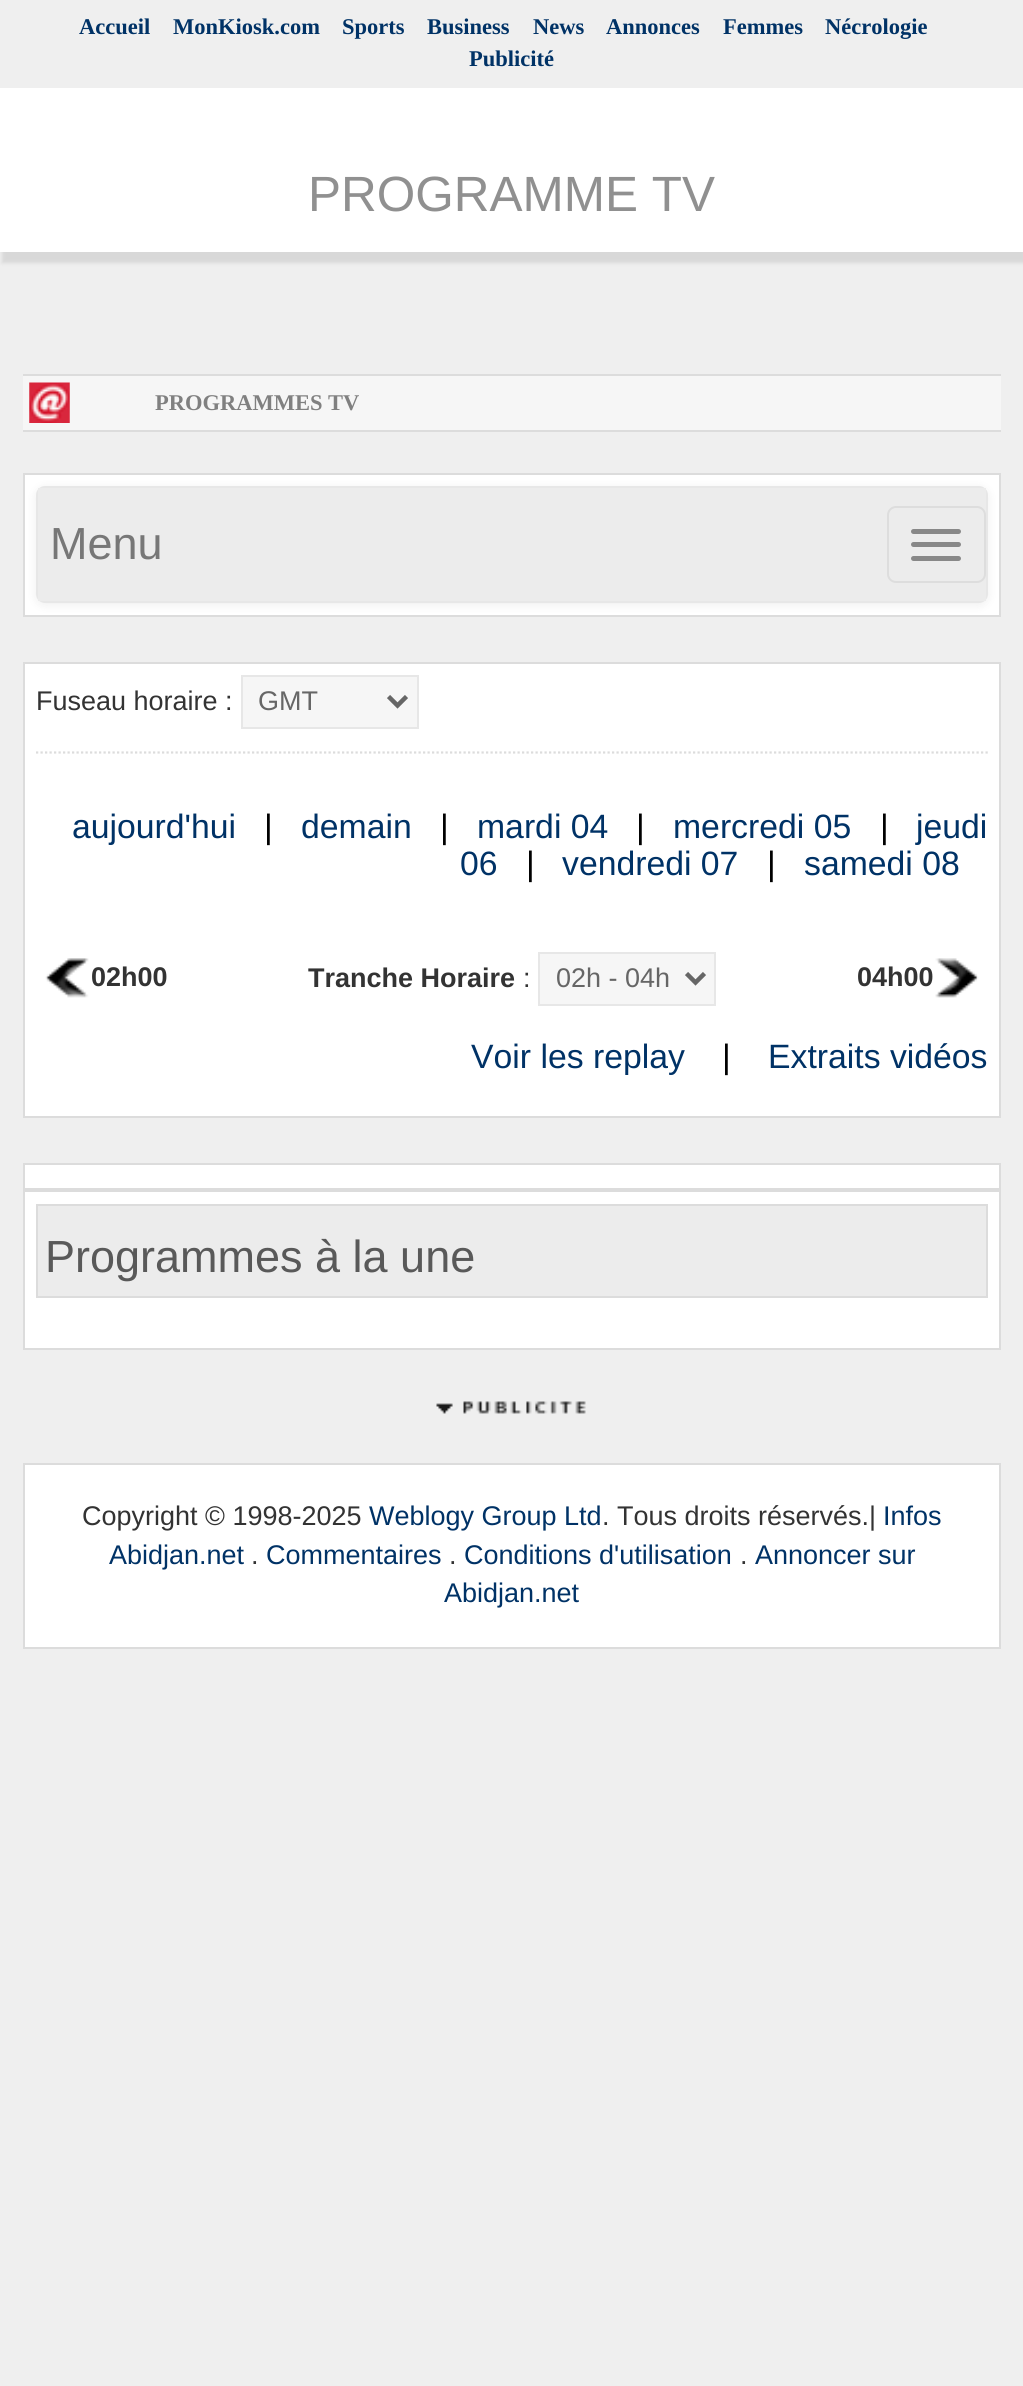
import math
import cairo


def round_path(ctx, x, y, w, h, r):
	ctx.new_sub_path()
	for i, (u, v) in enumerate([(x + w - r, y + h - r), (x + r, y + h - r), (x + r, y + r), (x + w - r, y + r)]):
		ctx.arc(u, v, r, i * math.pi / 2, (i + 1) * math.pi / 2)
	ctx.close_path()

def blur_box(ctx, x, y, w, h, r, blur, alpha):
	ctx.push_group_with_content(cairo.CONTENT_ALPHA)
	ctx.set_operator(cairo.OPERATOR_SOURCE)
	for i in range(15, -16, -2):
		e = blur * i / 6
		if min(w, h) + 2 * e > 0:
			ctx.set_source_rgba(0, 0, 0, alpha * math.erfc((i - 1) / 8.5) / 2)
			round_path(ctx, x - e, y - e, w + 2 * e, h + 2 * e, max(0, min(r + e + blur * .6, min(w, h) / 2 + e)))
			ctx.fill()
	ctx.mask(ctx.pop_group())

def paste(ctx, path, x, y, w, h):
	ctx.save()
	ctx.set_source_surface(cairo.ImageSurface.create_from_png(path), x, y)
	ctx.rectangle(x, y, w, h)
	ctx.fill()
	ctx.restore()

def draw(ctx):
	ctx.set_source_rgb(0.937, 0.937, 0.937)
	ctx.paint()
	ctx.select_font_face('Liberation Serif', cairo.FONT_SLANT_NORMAL, cairo.FONT_WEIGHT_BOLD)
	ctx.set_font_size(22.5)
	ctx.set_source_rgb(0, 0.196, 0.4)
	for x, y, s in [
		(79, 34, 'Accueil'),
		(173, 34, 'MonKiosk.com'),
		(342, 34, 'Sports'),
		(427, 34, 'Business'),
		(533, 34, 'News'),
		(606, 34, 'Annonces'),
		(723, 34, 'Femmes'),
		(825, 34, 'Nécrologie'),
		(469, 66, 'Publicité'),
	]:
		ctx.move_to(x, y)
		ctx.show_text(s)
	ctx.set_source_rgb(0, 0, 0)
	blur_box(ctx, 2, 99, 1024, 164, 0, 2, 0.1)
	ctx.set_source_rgb(1, 1, 1)
	ctx.rectangle(0, 88, 1023, 164)
	ctx.fill()
	ctx.select_font_face('Liberation Sans')
	ctx.set_font_size(49.5)
	ctx.set_source_rgb(0.565, 0.565, 0.565)
	ctx.move_to(308, 211)
	ctx.show_text('PROGRAMME TV')
	ctx.set_source_rgb(0.961, 0.961, 0.961)
	ctx.rectangle(23, 376, 978, 54)
	ctx.fill()
	ctx.set_source_rgb(0.863, 0.863, 0.863)
	ctx.rectangle(23, 374, 978, 2)
	ctx.rectangle(23, 430, 978, 2)
	ctx.fill()
	paste(ctx, 'media/1.png', 29, 382, 41, 41)
	ctx.select_font_face('Liberation Serif', cairo.FONT_SLANT_NORMAL, cairo.FONT_WEIGHT_BOLD)
	ctx.set_font_size(22.5)
	ctx.set_source_rgb(0.502, 0.502, 0.502)
	ctx.move_to(155, 410)
	ctx.show_text('PROGRAMMES TV')
	ctx.set_source_rgb(1, 1, 1)
	ctx.rectangle(24, 474, 976, 142)
	ctx.fill_preserve()
	ctx.set_source_rgb(0.863, 0.863, 0.863)
	ctx.stroke()
	ctx.set_source_rgb(0, 0, 0)
	blur_box(ctx, 36, 488, 952, 117, 9, 5.5, 0.07)
	round_path(ctx, 37, 487, 950, 115, 8)
	ctx.set_source_rgb(0.906, 0.906, 0.906)
	ctx.stroke()
	ctx.set_source_rgb(0.925, 0.925, 0.925)
	ctx.rectangle(38, 488, 948, 113)
	ctx.fill()
	ctx.select_font_face('Liberation Sans')
	ctx.set_font_size(45)
	ctx.set_source_rgb(0.467, 0.467, 0.467)
	ctx.move_to(50, 559)
	ctx.show_text('Menu')
	round_path(ctx, 888, 507, 97, 75, 8)
	ctx.set_source_rgb(0.867, 0.867, 0.867)
	ctx.stroke()
	ctx.set_source_rgb(0.533, 0.533, 0.533)
	round_path(ctx, 911, 529, 50, 5, 2.5)
	ctx.fill()
	round_path(ctx, 911, 542, 50, 5, 2.5)
	ctx.fill()
	round_path(ctx, 911, 556, 50, 5, 2.5)
	ctx.fill()
	ctx.set_source_rgb(1, 1, 1)
	ctx.rectangle(24, 663, 976, 454)
	ctx.fill_preserve()
	ctx.set_source_rgb(0.863, 0.863, 0.863)
	ctx.stroke()
	ctx.set_font_size(27)
	ctx.set_source_rgb(0.2, 0.2, 0.2)
	ctx.move_to(36, 710)
	ctx.show_text('Fuseau horaire :')
	ctx.set_source_rgb(0.961, 0.961, 0.961)
	ctx.rectangle(242, 676, 176, 52)
	ctx.fill_preserve()
	ctx.set_source_rgb(0.906, 0.906, 0.906)
	ctx.stroke()
	ctx.new_path()
	ctx.move_to(388.5, 696.5)
	ctx.line_to(397.5, 705.5)
	ctx.line_to(406.5, 696.5)
	ctx.set_source_rgb(0.4, 0.4, 0.4)
	ctx.set_line_width(4.5)
	ctx.stroke()
	ctx.move_to(258, 710)
	ctx.show_text('GMT')
	ctx.new_path()
	ctx.move_to(36, 752.5)
	ctx.line_to(988, 752.5)
	ctx.set_source_rgb(0.863, 0.863, 0.863)
	ctx.set_line_width(2.2)
	ctx.set_dash([2.25, 2.25])
	ctx.stroke()
	ctx.set_font_size(33.75)
	ctx.set_source_rgb(0, 0.196, 0.4)
	ctx.move_to(72, 838)
	ctx.show_text('aujourd\'hui')
	ctx.set_source_rgb(0, 0, 0)
	ctx.move_to(264, 838)
	ctx.show_text('|')
	ctx.set_source_rgb(0, 0.196, 0.4)
	ctx.move_to(301, 838)
	ctx.show_text('demain')
	ctx.set_source_rgb(0, 0, 0)
	ctx.move_to(440, 838)
	ctx.show_text('|')
	ctx.set_source_rgb(0, 0.196, 0.4)
	ctx.move_to(477, 838)
	ctx.show_text('mardi 04')
	ctx.set_source_rgb(0, 0, 0)
	ctx.move_to(636, 838)
	ctx.show_text('|')
	ctx.set_source_rgb(0, 0.196, 0.4)
	ctx.move_to(673, 838)
	ctx.show_text('mercredi 05')
	ctx.set_source_rgb(0, 0, 0)
	ctx.move_to(880, 838)
	ctx.show_text('|')
	ctx.set_source_rgb(0, 0.196, 0.4)
	ctx.move_to(916, 838)
	ctx.show_text('jeudi')
	ctx.move_to(460, 875)
	ctx.show_text('06')
	ctx.set_source_rgb(0, 0, 0)
	ctx.move_to(526, 875)
	ctx.show_text('|')
	ctx.set_source_rgb(0, 0.196, 0.4)
	ctx.move_to(562, 875)
	ctx.show_text('vendredi 07')
	ctx.set_source_rgb(0, 0, 0)
	ctx.move_to(767, 875)
	ctx.show_text('|')
	ctx.set_source_rgb(0, 0.196, 0.4)
	ctx.move_to(804, 875)
	ctx.show_text('samedi 08')
	paste(ctx, 'media/2.png', 45, 958, 44, 40)
	ctx.select_font_face('Liberation Sans', cairo.FONT_SLANT_NORMAL, cairo.FONT_WEIGHT_BOLD)
	ctx.set_font_size(27)
	ctx.set_source_rgb(0.2, 0.2, 0.2)
	ctx.move_to(91, 986)
	ctx.show_text('02h00')
	ctx.move_to(308, 987)
	ctx.show_text('Tranche Horaire')
	ctx.select_font_face('Liberation Sans')
	ctx.move_to(523, 987)
	ctx.show_text(':')
	ctx.set_source_rgb(0.961, 0.961, 0.961)
	ctx.rectangle(539, 953, 176, 52)
	ctx.fill_preserve()
	ctx.set_source_rgb(0.906, 0.906, 0.906)
	ctx.set_line_width(2)
	ctx.set_dash([])
	ctx.stroke()
	ctx.new_path()
	ctx.move_to(686.5, 973.5)
	ctx.line_to(695.5, 982.5)
	ctx.line_to(704.5, 973.5)
	ctx.set_source_rgb(0.4, 0.4, 0.4)
	ctx.set_line_width(4.5)
	ctx.stroke()
	ctx.move_to(556, 987)
	ctx.show_text('02h - 04h')
	ctx.select_font_face('Liberation Sans', cairo.FONT_SLANT_NORMAL, cairo.FONT_WEIGHT_BOLD)
	ctx.set_source_rgb(0.2, 0.2, 0.2)
	ctx.move_to(857, 986)
	ctx.show_text('04h00')
	paste(ctx, 'media/3.png', 935, 958, 44, 40)
	ctx.select_font_face('Liberation Sans')
	ctx.set_font_size(33.75)
	ctx.set_source_rgb(0, 0.196, 0.4)
	ctx.move_to(471, 1068)
	ctx.show_text('Voir les replay')
	ctx.set_source_rgb(0, 0, 0)
	ctx.move_to(722, 1068)
	ctx.show_text('|')
	ctx.set_source_rgb(0, 0.196, 0.4)
	ctx.move_to(768, 1068)
	ctx.show_text('Extraits vidéos')
	ctx.set_source_rgb(1, 1, 1)
	ctx.rectangle(24, 1164, 976, 25)
	ctx.fill_preserve()
	ctx.set_source_rgb(0.863, 0.863, 0.863)
	ctx.set_line_width(2)
	ctx.stroke()
	ctx.set_source_rgb(1, 1, 1)
	ctx.rectangle(24, 1191, 976, 158)
	ctx.fill_preserve()
	ctx.set_source_rgb(0.863, 0.863, 0.863)
	ctx.stroke()
	ctx.set_source_rgb(0.925, 0.925, 0.925)
	ctx.rectangle(37, 1205, 950, 92)
	ctx.fill_preserve()
	ctx.set_source_rgb(0.863, 0.863, 0.863)
	ctx.stroke()
	ctx.set_font_size(45)
	ctx.set_source_rgb(0.349, 0.349, 0.349)
	ctx.move_to(45, 1272)
	ctx.show_text('Programmes à la une')
	paste(ctx, 'media/4.png', 436, 1401, 150, 13)
	ctx.set_source_rgb(1, 1, 1)
	ctx.rectangle(24, 1464, 976, 184)
	ctx.fill_preserve()
	ctx.set_source_rgb(0.863, 0.863, 0.863)
	ctx.stroke()
	ctx.set_font_size(27)
	ctx.set_source_rgb(0.2, 0.2, 0.2)
	ctx.move_to(82, 1525)
	ctx.show_text('Copyright © 1998-2025')
	ctx.set_source_rgb(0, 0.196, 0.4)
	ctx.move_to(369, 1525)
	ctx.show_text('Weblogy Group Ltd')
	ctx.set_source_rgb(0.2, 0.2, 0.2)
	ctx.move_to(602, 1525)
	ctx.show_text('. Tous droits réservés.|')
	ctx.set_source_rgb(0, 0.196, 0.4)
	ctx.move_to(883, 1525)
	ctx.show_text('Infos')
	ctx.move_to(109, 1564)
	ctx.show_text('Abidjan.net')
	ctx.set_source_rgb(0.2, 0.2, 0.2)
	ctx.move_to(251, 1564)
	ctx.show_text('.')
	ctx.set_source_rgb(0, 0.196, 0.4)
	ctx.move_to(266, 1564)
	ctx.show_text('Commentaires')
	ctx.set_source_rgb(0.2, 0.2, 0.2)
	ctx.move_to(449, 1564)
	ctx.show_text('.')
	ctx.set_source_rgb(0, 0.196, 0.4)
	ctx.move_to(464, 1564)
	ctx.show_text('Conditions d\'utilisation')
	ctx.set_source_rgb(0.2, 0.2, 0.2)
	ctx.move_to(740, 1564)
	ctx.show_text('.')
	ctx.set_source_rgb(0, 0.196, 0.4)
	ctx.move_to(755, 1564)
	ctx.show_text('Annoncer sur')
	ctx.move_to(444, 1602)
	ctx.show_text('Abidjan.net')


surface = cairo.ImageSurface(cairo.FORMAT_RGB24, 1023, 2386)
ctx = cairo.Context(surface)
options = cairo.FontOptions()
options.set_hint_metrics(cairo.HINT_METRICS_OFF)
options.set_hint_style(cairo.HINT_STYLE_NONE)
ctx.set_font_options(options)
ctx.set_miter_limit(4)
draw(ctx)
surface.write_to_png('image.png')
